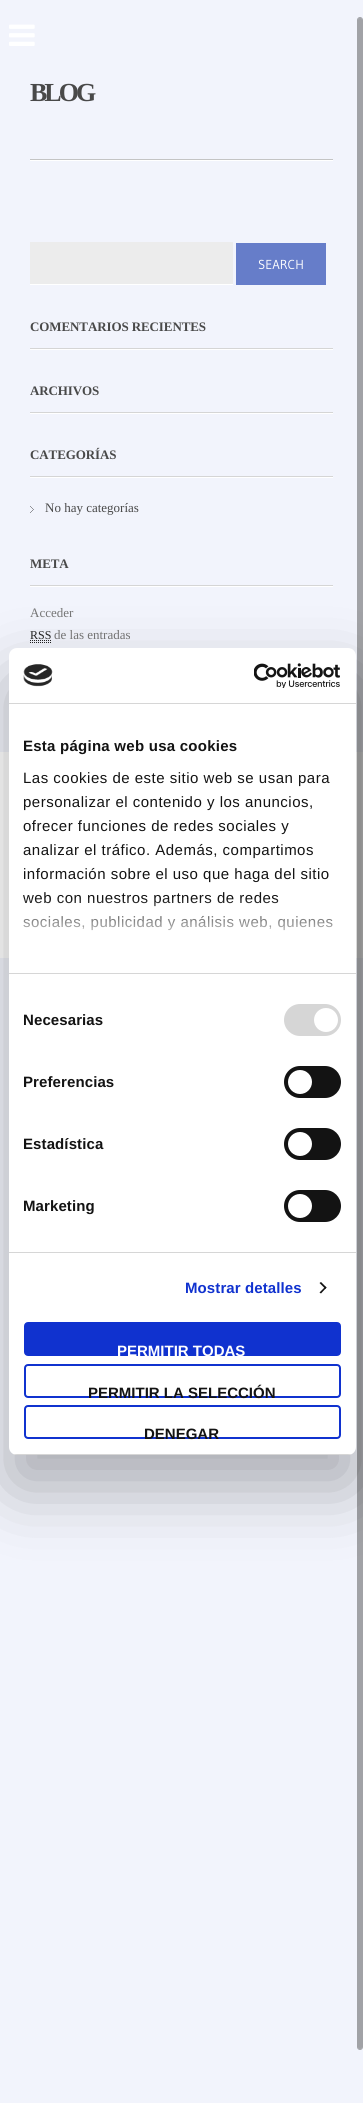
import math
import cairo


def write_spaced(ctx, x, y, s, letter, word):
	ctx.move_to(x, y)
	for ch in s:
		ctx.show_text(ch)
		ctx.rel_move_to(letter + word * (ch == ' '), 0)

def round_path(ctx, x, y, w, h, r):
	ctx.new_sub_path()
	for i, (u, v) in enumerate([(x + w - r, y + h - r), (x + r, y + h - r), (x + r, y + r), (x + w - r, y + r)]):
		ctx.arc(u, v, r, i * math.pi / 2, (i + 1) * math.pi / 2)
	ctx.close_path()

def blur_box(ctx, x, y, w, h, r, blur, alpha):
	ctx.push_group_with_content(cairo.CONTENT_ALPHA)
	ctx.set_operator(cairo.OPERATOR_SOURCE)
	for i in range(15, -16, -2):
		e = blur * i / 6
		if min(w, h) + 2 * e > 0:
			ctx.set_source_rgba(0, 0, 0, alpha * math.erfc((i - 1) / 8.5) / 2)
			round_path(ctx, x - e, y - e, w + 2 * e, h + 2 * e, max(0, min(r + e + blur * .6, min(w, h) / 2 + e)))
			ctx.fill()
	ctx.mask(ctx.pop_group())

def paste(ctx, path, x, y, w, h):
	ctx.save()
	ctx.set_source_surface(cairo.ImageSurface.create_from_png(path), x, y)
	ctx.rectangle(x, y, w, h)
	ctx.fill()
	ctx.restore()

def draw(ctx):
	ctx.set_source_rgb(0.949, 0.957, 0.988)
	ctx.paint()
	paste(ctx, 'media/1.png', 9, 24, 26, 22)
	ctx.set_source_rgb(1, 1, 1)
	ctx.rectangle(0, 752, 363, 206)
	ctx.fill()
	ctx.set_source_rgba(0.259, 0.259, 0.259, 0.46)
	round_path(ctx, 358, 18, 4, 2031, 2)
	ctx.fill()
	round_path(ctx, 357.5, 17.5, 5, 2032, 2.5)
	ctx.set_line_width(1)
	ctx.stroke()
	ctx.select_font_face('Liberation Serif', cairo.FONT_SLANT_NORMAL, cairo.FONT_WEIGHT_BOLD)
	ctx.set_font_size(26)
	ctx.set_source_rgb(0.286, 0.286, 0.286)
	write_spaced(ctx, 30, 101, 'BLOG', -3, 0)
	ctx.set_source_rgb(0.769, 0.769, 0.769)
	ctx.rectangle(30, 159, 303, 1)
	ctx.fill()
	ctx.set_source_rgb(1, 1, 1)
	ctx.rectangle(30, 160, 303, 1)
	ctx.fill()
	ctx.set_source_rgb(0.922, 0.922, 0.922)
	ctx.rectangle(30, 242, 203, 42)
	ctx.fill()
	ctx.set_source_rgb(1, 1, 1)
	ctx.rectangle(30, 284, 203, 1)
	ctx.fill()
	ctx.set_source_rgb(0.4, 0.49, 0.788)
	ctx.rectangle(236, 243, 90, 42)
	ctx.fill()
	ctx.select_font_face('Gudea')
	ctx.set_font_size(13)
	ctx.set_source_rgb(1, 1, 1)
	ctx.move_to(258, 269)
	ctx.show_text('SEARCH')
	paste(ctx, 'media/2.png', 30, 348, 303, 2)
	ctx.select_font_face('Liberation Serif', cairo.FONT_SLANT_NORMAL, cairo.FONT_WEIGHT_BOLD)
	ctx.set_source_rgb(0.286, 0.286, 0.286)
	write_spaced(ctx, 30, 331, 'COMENTARIOS RECIENTES', -0.1, 0)
	paste(ctx, 'media/2.png', 30, 412, 303, 2)
	write_spaced(ctx, 30, 395, 'ARCHIVOS', -0.1, 0)
	paste(ctx, 'media/2.png', 30, 476, 303, 2)
	write_spaced(ctx, 30, 459, 'CATEGORÍAS', -0.1, 0)
	paste(ctx, 'media/3.png', 30, 506, 4, 7)
	ctx.select_font_face('Liberation Serif')
	ctx.move_to(45, 512)
	ctx.show_text('No hay categorías')
	paste(ctx, 'media/2.png', 30, 585, 303, 2)
	ctx.select_font_face('Liberation Serif', cairo.FONT_SLANT_NORMAL, cairo.FONT_WEIGHT_BOLD)
	write_spaced(ctx, 30, 568, 'META', -0.1, 0)
	ctx.select_font_face('Liberation Serif')
	ctx.set_source_rgb(0.459, 0.459, 0.459)
	ctx.move_to(30, 617)
	ctx.show_text('Acceder')
	ctx.set_font_size(12)
	ctx.set_source_rgb(0.133, 0.133, 0.133)
	ctx.move_to(30, 639)
	ctx.show_text('RSS')
	ctx.new_path()
	ctx.move_to(30, 642.5)
	ctx.line_to(51, 642.5)
	ctx.move_to(30, 640.5)
	ctx.line_to(51, 640.5)
	ctx.set_dash([1, 1])
	ctx.stroke()
	ctx.set_font_size(13)
	ctx.set_source_rgb(0.459, 0.459, 0.459)
	ctx.move_to(54, 639)
	ctx.show_text('de las entradas')
	ctx.set_source_rgb(0, 0, 0)
	blur_box(ctx, 9, 680, 347, 807, 8, 34, 0.3)
	ctx.set_source_rgb(1, 1, 1)
	round_path(ctx, 9, 648, 347, 807, 8)
	ctx.fill()
	ctx.set_source_rgb(0.839, 0.839, 0.839)
	ctx.rectangle(9, 703, 347, 1)
	ctx.fill()
	paste(ctx, 'media/4.png', 23, 664, 30, 23)
	paste(ctx, 'media/5.png', 254, 663, 86, 25)
	ctx.rectangle(9, 973, 347, 1)
	ctx.fill()
	ctx.select_font_face('Liberation Sans', cairo.FONT_SLANT_NORMAL, cairo.FONT_WEIGHT_BOLD)
	ctx.set_font_size(15)
	ctx.set_source_rgb(0.078, 0.078, 0.078)
	write_spaced(ctx, 23, 751, 'Esta página web usa cookies', 0.25, 0)
	ctx.select_font_face('Liberation Sans')
	for x, y, s in [
		(23, 783, 'Las cookies de este sitio web se usan para'),
		(23, 807, 'personalizar el contenido y los anuncios,'),
		(23, 831, 'ofrecer funciones de redes sociales y'),
		(23, 855, 'analizar el tráfico. Además, compartimos'),
		(23, 879, 'información sobre el uso que haga del sitio'),
		(23, 903, 'web con nuestros partners de redes'),
		(23, 927, 'sociales, publicidad y análisis web, quienes'),
	]:
		write_spaced(ctx, x, y, s, 0.5, 0)
	gradient = cairo.LinearGradient(176, 973, 176, 898)
	gradient.add_color_stop_rgba(0, 1, 1, 1, 1)
	gradient.add_color_stop_rgba(0.5, 1, 1, 1, 0.8)
	gradient.add_color_stop_rgba(1, 1, 1, 1, 0)
	ctx.set_source(gradient)
	ctx.rectangle(23, 899, 310, 32)
	ctx.fill()
	ctx.set_source_rgb(0.839, 0.839, 0.839)
	ctx.rectangle(9, 1252, 347, 1)
	ctx.fill()
	ctx.select_font_face('Liberation Sans', cairo.FONT_SLANT_NORMAL, cairo.FONT_WEIGHT_BOLD)
	ctx.set_source_rgb(0.078, 0.078, 0.078)
	write_spaced(ctx, 23, 1025, 'Necesarias', 0.1, 0)
	ctx.set_source_rgb(0.839, 0.839, 0.839)
	round_path(ctx, 284, 1004, 57, 32, 16)
	ctx.fill()
	ctx.set_source_rgb(1, 1, 1)
	ctx.arc(326, 1020, 12, 0, 2 * math.pi)
	ctx.fill()
	ctx.set_source_rgb(0.078, 0.078, 0.078)
	write_spaced(ctx, 23, 1087, 'Preferencias', 0.1, 0)
	round_path(ctx, 284, 1066, 57, 32, 16)
	ctx.fill()
	ctx.set_source_rgb(1, 1, 1)
	ctx.arc(300, 1082, 12, 0, 2 * math.pi)
	ctx.fill()
	ctx.set_source_rgb(0.078, 0.078, 0.078)
	write_spaced(ctx, 23, 1149, 'Estadística', 0.1, 0)
	round_path(ctx, 284, 1128, 57, 32, 16)
	ctx.fill()
	ctx.set_source_rgb(1, 1, 1)
	ctx.arc(300, 1144, 12, 0, 2 * math.pi)
	ctx.fill()
	ctx.set_source_rgb(0.078, 0.078, 0.078)
	write_spaced(ctx, 23, 1211, 'Marketing', 0.1, 0)
	round_path(ctx, 284, 1190, 57, 32, 16)
	ctx.fill()
	ctx.set_source_rgb(1, 1, 1)
	ctx.arc(300, 1206, 12, 0, 2 * math.pi)
	ctx.fill()
	ctx.set_source_rgb(0.063, 0.196, 0.812)
	write_spaced(ctx, 185, 1293, 'Mostrar detalles', 0.1, 0)
	ctx.set_source_rgb(0.078, 0.078, 0.078)
	ctx.new_path()
	ctx.move_to(321, 1282)
	ctx.line_to(326.5, 1287.5)
	ctx.line_to(325.5, 1289)
	ctx.line_to(319.5, 1283)
	ctx.close_path()
	ctx.fill()
	ctx.new_path()
	ctx.move_to(325.5, 1286.5)
	ctx.line_to(326.5, 1287.5)
	ctx.line_to(321, 1293.5)
	ctx.line_to(319.5, 1292.5)
	ctx.close_path()
	ctx.fill()
	ctx.save()
	round_path(ctx, 9, 648, 347, 807, 8)
	ctx.clip()
	ctx.set_source_rgb(0.839, 0.839, 0.839)
	ctx.rectangle(9, 1454, 347, 1)
	ctx.fill()
	ctx.restore()
	ctx.set_source_rgb(0.063, 0.196, 0.812)
	round_path(ctx, 25, 1323, 315, 32, 3)
	ctx.fill_preserve()
	ctx.set_line_width(2)
	ctx.set_dash([])
	ctx.stroke()
	ctx.set_source_rgb(1, 1, 1)
	ctx.move_to(117, 1356)
	ctx.show_text('PERMITIR TODAS')
	round_path(ctx, 25, 1365, 315, 32, 3)
	ctx.set_source_rgb(0.063, 0.196, 0.812)
	ctx.stroke()
	ctx.set_source_rgb(0.078, 0.078, 0.078)
	ctx.move_to(88, 1398)
	ctx.show_text('PERMITIR LA SELECCIÓN')
	round_path(ctx, 25, 1406, 315, 32, 3)
	ctx.set_source_rgb(0.063, 0.196, 0.812)
	ctx.stroke()
	ctx.set_source_rgb(0.078, 0.078, 0.078)
	ctx.move_to(144, 1439)
	ctx.show_text('DENEGAR')


surface = cairo.ImageSurface(cairo.FORMAT_RGB24, 363, 2103)
ctx = cairo.Context(surface)
options = cairo.FontOptions()
options.set_hint_metrics(cairo.HINT_METRICS_OFF)
options.set_hint_style(cairo.HINT_STYLE_NONE)
ctx.set_font_options(options)
ctx.set_miter_limit(4)
draw(ctx)
surface.write_to_png('image.png')
